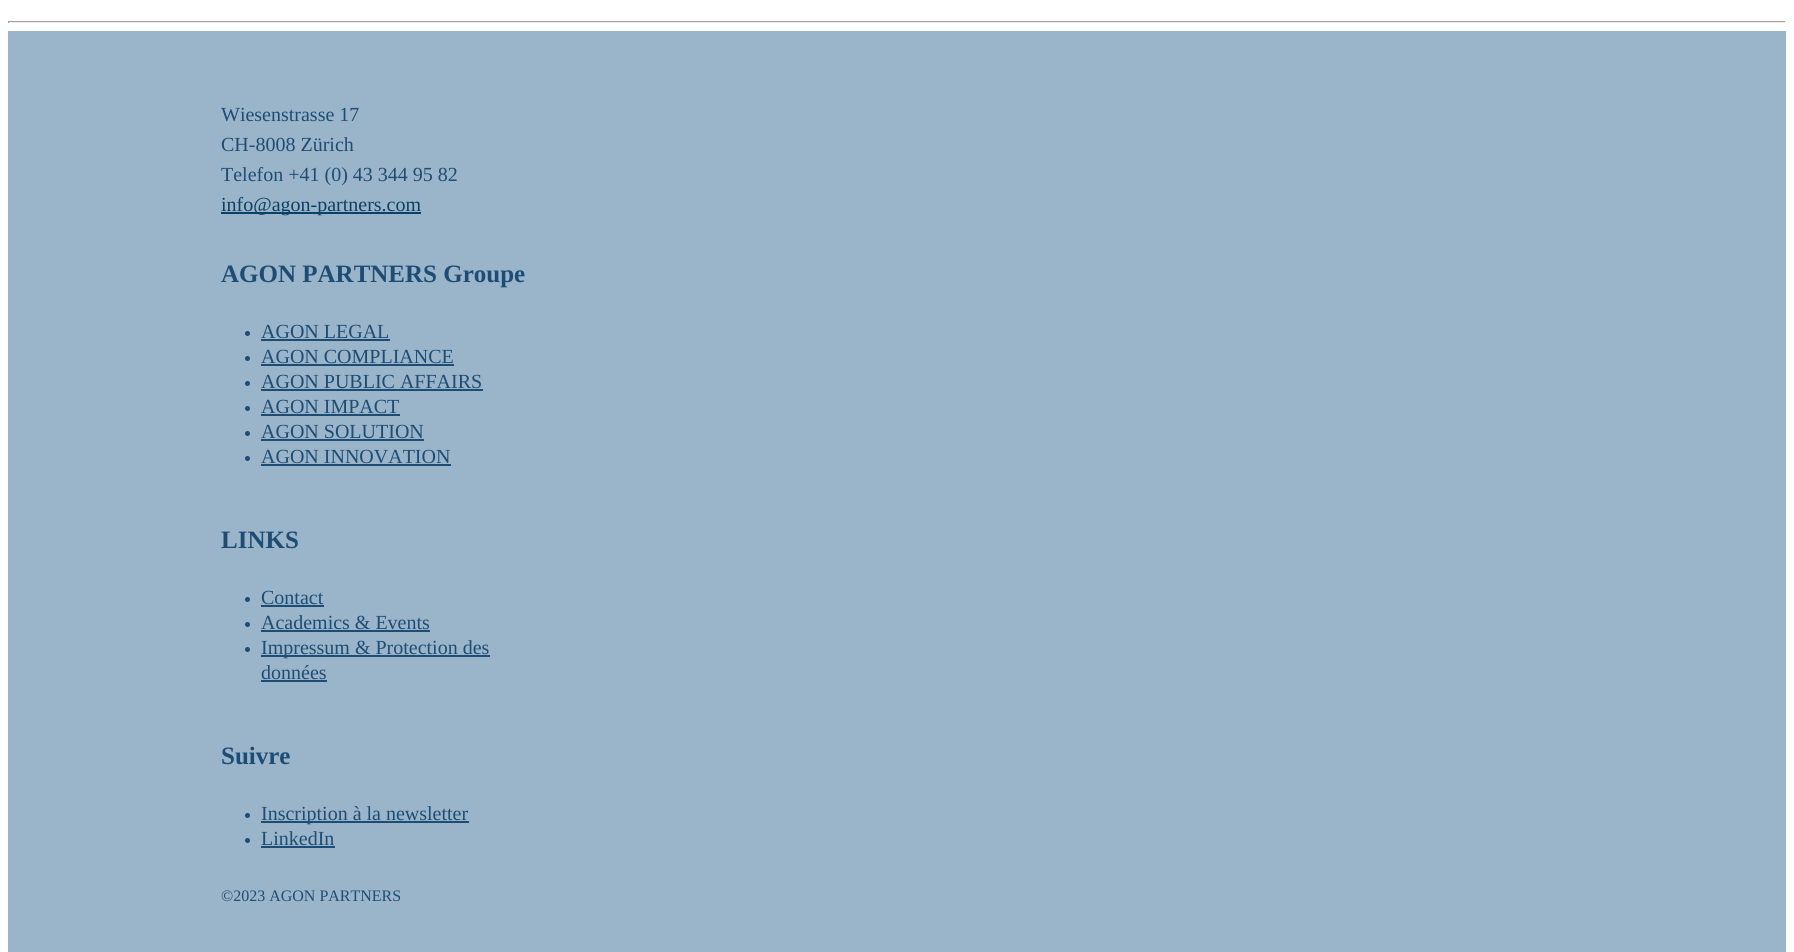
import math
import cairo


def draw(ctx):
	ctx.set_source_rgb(1, 1, 1)
	ctx.paint()
	ctx.set_source_rgb(0.624, 0.624, 0.624)
	ctx.rectangle(8, 21, 1778, 1)
	ctx.fill()
	ctx.set_source_rgb(0.933, 0.933, 0.933)
	ctx.rectangle(1785, 21, 1, 2)
	ctx.rectangle(8, 22, 1778, 1)
	ctx.fill()
	ctx.set_source_rgb(0.624, 0.624, 0.624)
	ctx.rectangle(8, 21, 1, 2)
	ctx.fill()
	ctx.set_source_rgb(0.604, 0.706, 0.788)
	ctx.rectangle(8, 31, 1778, 921)
	ctx.fill()
	ctx.select_font_face('Liberation Serif')
	ctx.set_font_size(20)
	ctx.set_source_rgb(0.114, 0.302, 0.455)
	for x, y, s in [
		(221, 121, 'Wiesenstrasse 17'),
		(221, 151, 'CH-8008 Zürich'),
		(221, 181, 'Telefon +41 (0) 43 344 95 82'),
	]:
		ctx.move_to(x, y)
		ctx.show_text(s)
	ctx.set_source_rgb(0.043, 0.255, 0.392)
	ctx.rectangle(221, 212, 200, 2)
	ctx.fill()
	ctx.move_to(221, 211)
	ctx.show_text('info@agon-partners.com')
	ctx.select_font_face('Liberation Serif', cairo.FONT_SLANT_NORMAL, cairo.FONT_WEIGHT_BOLD)
	ctx.set_font_size(25)
	ctx.set_source_rgb(0.114, 0.302, 0.455)
	ctx.move_to(221, 282)
	ctx.show_text('AGON PARTNERS Groupe')
	ctx.new_path()
	ctx.arc(247.5, 333.5, 2.5, 0, 2 * math.pi)
	ctx.fill()
	ctx.select_font_face('Liberation Serif')
	ctx.set_font_size(20)
	ctx.move_to(261, 338)
	ctx.show_text('AGON LEGAL')
	ctx.rectangle(261, 339, 129, 2)
	ctx.fill()
	ctx.arc(247.5, 358.5, 2.5, 0, 2 * math.pi)
	ctx.fill()
	ctx.move_to(261, 363)
	ctx.show_text('AGON COMPLIANCE')
	ctx.rectangle(261, 364, 193, 2)
	ctx.fill()
	ctx.arc(247.5, 383.5, 2.5, 0, 2 * math.pi)
	ctx.fill()
	ctx.move_to(261, 388)
	ctx.show_text('AGON PUBLIC AFFAIRS')
	ctx.rectangle(261, 389, 222, 2)
	ctx.fill()
	ctx.arc(247.5, 408.5, 2.5, 0, 2 * math.pi)
	ctx.fill()
	ctx.move_to(261, 413)
	ctx.show_text('AGON IMPACT')
	ctx.rectangle(261, 414, 139, 2)
	ctx.fill()
	ctx.arc(247.5, 433.5, 2.5, 0, 2 * math.pi)
	ctx.fill()
	ctx.move_to(261, 438)
	ctx.show_text('AGON SOLUTION')
	ctx.rectangle(261, 439, 163, 2)
	ctx.fill()
	ctx.arc(247.5, 458.5, 2.5, 0, 2 * math.pi)
	ctx.fill()
	ctx.move_to(261, 463)
	ctx.show_text('AGON INNOVATION')
	ctx.rectangle(261, 464, 190, 2)
	ctx.fill()
	ctx.select_font_face('Liberation Serif', cairo.FONT_SLANT_NORMAL, cairo.FONT_WEIGHT_BOLD)
	ctx.set_font_size(25)
	ctx.move_to(221, 548)
	ctx.show_text('LINKS')
	ctx.new_path()
	ctx.arc(247.5, 599.5, 2.5, 0, 2 * math.pi)
	ctx.fill()
	ctx.select_font_face('Liberation Serif')
	ctx.set_font_size(20)
	ctx.move_to(261, 604)
	ctx.show_text('Contact')
	ctx.rectangle(261, 605, 63, 2)
	ctx.fill()
	ctx.arc(247.5, 624.5, 2.5, 0, 2 * math.pi)
	ctx.fill()
	ctx.move_to(261, 629)
	ctx.show_text('Academics & Events')
	ctx.rectangle(261, 630, 169, 2)
	ctx.fill()
	ctx.arc(247.5, 649.5, 2.5, 0, 2 * math.pi)
	ctx.fill()
	ctx.rectangle(261, 655, 229, 2)
	ctx.fill()
	ctx.move_to(261, 654)
	ctx.show_text('Impressum & Protection des')
	ctx.move_to(261, 679)
	ctx.show_text('données')
	ctx.rectangle(261, 680, 66, 2)
	ctx.fill()
	ctx.select_font_face('Liberation Serif', cairo.FONT_SLANT_NORMAL, cairo.FONT_WEIGHT_BOLD)
	ctx.set_font_size(25)
	ctx.move_to(221, 764)
	ctx.show_text('Suivre')
	ctx.new_path()
	ctx.arc(247.5, 815.5, 2.5, 0, 2 * math.pi)
	ctx.fill()
	ctx.rectangle(261, 821, 208, 2)
	ctx.fill()
	ctx.select_font_face('Liberation Serif')
	ctx.set_font_size(20)
	ctx.move_to(261, 820)
	ctx.show_text('Inscription à la newsletter')
	ctx.new_path()
	ctx.arc(247.5, 840.5, 2.5, 0, 2 * math.pi)
	ctx.fill()
	ctx.move_to(261, 845)
	ctx.show_text('LinkedIn')
	ctx.rectangle(261, 846, 74, 2)
	ctx.fill()
	ctx.set_font_size(16)
	ctx.move_to(221, 901)
	ctx.show_text('©2023 AGON PARTNERS')


surface = cairo.ImageSurface(cairo.FORMAT_RGB24, 1794, 952)
ctx = cairo.Context(surface)
options = cairo.FontOptions()
options.set_hint_metrics(cairo.HINT_METRICS_OFF)
options.set_hint_style(cairo.HINT_STYLE_NONE)
ctx.set_font_options(options)
ctx.set_miter_limit(4)
draw(ctx)
surface.write_to_png('image.png')
